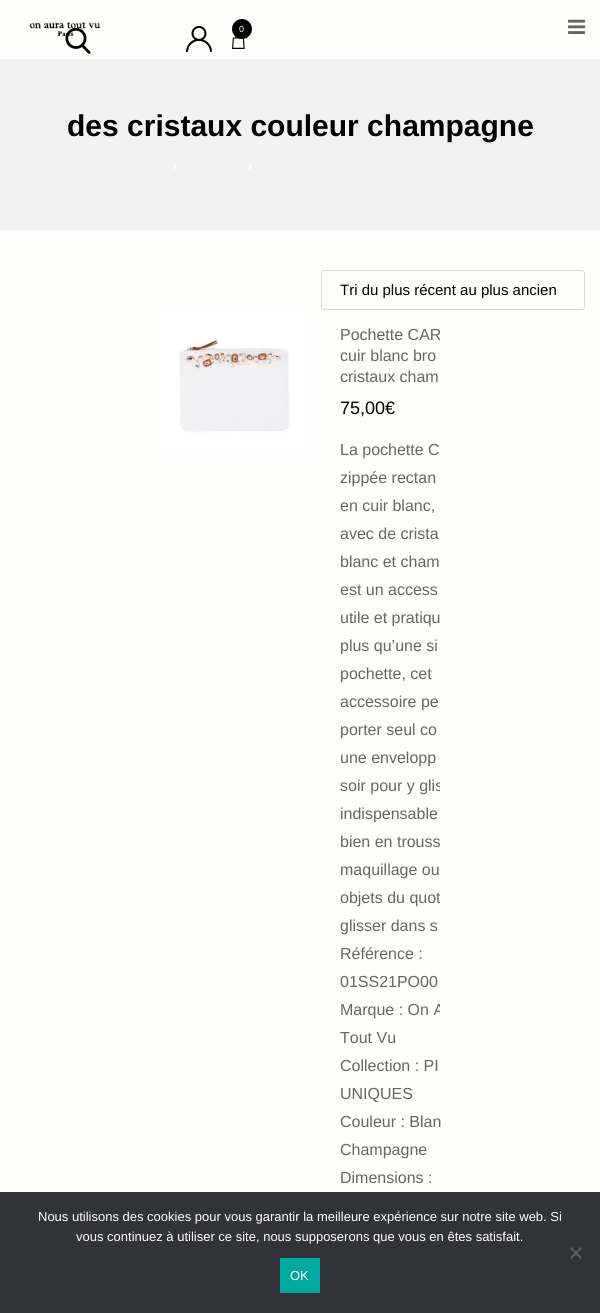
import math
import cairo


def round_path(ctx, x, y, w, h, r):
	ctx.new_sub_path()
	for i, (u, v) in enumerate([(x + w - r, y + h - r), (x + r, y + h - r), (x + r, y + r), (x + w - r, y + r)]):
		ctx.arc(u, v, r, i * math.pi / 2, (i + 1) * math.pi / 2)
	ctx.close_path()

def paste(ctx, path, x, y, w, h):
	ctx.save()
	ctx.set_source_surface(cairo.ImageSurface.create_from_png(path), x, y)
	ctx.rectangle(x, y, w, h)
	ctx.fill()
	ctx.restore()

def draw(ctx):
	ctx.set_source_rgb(0.996, 1, 0.976)
	ctx.paint()
	paste(ctx, 'media/1.png', 30, 22, 70, 14)
	paste(ctx, 'media/2.png', 65, 27, 26, 27)
	paste(ctx, 'media/3.png', 186, 25, 26, 27)
	paste(ctx, 'media/4.png', 232, 36, 13, 13)
	ctx.set_source_rgb(0, 0, 0)
	ctx.arc(242, 29, 10, 0, 2 * math.pi)
	ctx.fill()
	ctx.select_font_face('Liberation Sans')
	ctx.set_font_size(9)
	ctx.set_source_rgb(1, 1, 1)
	ctx.move_to(239, 32)
	ctx.show_text('0')
	paste(ctx, 'media/5.png', 568, 19, 18, 15)
	ctx.set_source_rgb(0.949, 0.949, 0.949)
	ctx.rectangle(0, 59, 600, 171)
	ctx.fill()
	ctx.select_font_face('Liberation Sans', cairo.FONT_SLANT_NORMAL, cairo.FONT_WEIGHT_BOLD)
	ctx.set_font_size(30)
	ctx.set_source_rgb(0, 0, 0)
	ctx.move_to(67, 136)
	ctx.show_text('des cristaux couleur champagne')
	paste(ctx, 'media/6.png', 172, 162, 5, 8)
	paste(ctx, 'media/6.png', 247, 162, 5, 8)
	round_path(ctx, 321.5, 270.5, 263, 39, 2.5)
	ctx.set_source_rgb(0.843, 0.843, 0.843)
	ctx.set_line_width(1)
	ctx.stroke()
	ctx.select_font_face('Liberation Sans')
	ctx.set_font_size(15)
	ctx.set_source_rgb(0, 0, 0)
	ctx.move_to(340, 295)
	ctx.show_text('Tri du plus récent au plus ancien')
	paste(ctx, 'media/7.png', 160, 310, 150, 150)
	ctx.save()
	ctx.rectangle(160, 310, 280, 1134)
	ctx.clip()
	ctx.set_font_size(16)
	ctx.set_source_rgb(0.4, 0.4, 0.4)
	ctx.move_to(340, 340)
	ctx.show_text('Pochette CAR')
	ctx.restore()
	ctx.set_font_size(16)
	ctx.set_source_rgb(0.4, 0.4, 0.4)
	ctx.move_to(340, 361)
	ctx.show_text('cuir blanc bro')
	ctx.move_to(340, 382)
	ctx.show_text('cristaux cham')
	ctx.set_font_size(18)
	ctx.set_source_rgb(0, 0, 0)
	ctx.move_to(340, 414)
	ctx.show_text('75,00€')
	ctx.set_font_size(16)
	ctx.set_source_rgb(0.4, 0.4, 0.4)
	for x, y, s in [
		(340, 455, 'La pochette C'),
		(340, 483, 'zippée rectan'),
		(340, 511, 'en cuir blanc,'),
		(340, 539, 'avec de crista'),
		(340, 567, 'blanc et cham'),
		(340, 595, 'est un access'),
		(340, 623, 'utile et pratiqu'),
		(340, 651, 'plus qu’une si'),
		(340, 679, 'pochette, cet'),
		(340, 707, 'accessoire pe'),
		(340, 735, 'porter seul co'),
		(340, 763, 'une envelopp'),
	]:
		ctx.move_to(x, y)
		ctx.show_text(s)
	ctx.save()
	ctx.rectangle(160, 310, 280, 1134)
	ctx.clip()
	ctx.move_to(340, 791)
	ctx.show_text('soir pour y glis')
	ctx.restore()
	for x, y, s in [
		(340, 819, 'indispensable'),
		(340, 847, 'bien en trouss'),
		(340, 875, 'maquillage ou'),
	]:
		ctx.move_to(x, y)
		ctx.show_text(s)
	ctx.save()
	ctx.rectangle(160, 310, 280, 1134)
	ctx.clip()
	ctx.move_to(340, 903)
	ctx.show_text('objets du quot')
	ctx.restore()
	for x, y, s in [
		(340, 931, 'glisser dans s'),
		(340, 959, 'Référence :'),
		(340, 987, '01SS21PO00'),
	]:
		ctx.move_to(x, y)
		ctx.show_text(s)
	ctx.save()
	ctx.rectangle(160, 310, 280, 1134)
	ctx.clip()
	ctx.move_to(340, 1015)
	ctx.show_text('Marque : On A')
	ctx.restore()
	for x, y, s in [
		(340, 1043, 'Tout Vu'),
		(340, 1071, 'Collection : PI'),
		(340, 1099, 'UNIQUES'),
	]:
		ctx.move_to(x, y)
		ctx.show_text(s)
	ctx.save()
	ctx.rectangle(160, 310, 280, 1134)
	ctx.clip()
	ctx.move_to(340, 1127)
	ctx.show_text('Couleur : Blan')
	ctx.restore()
	ctx.move_to(340, 1155)
	ctx.show_text('Champagne')
	ctx.move_to(340, 1183)
	ctx.show_text('Dimensions :')
	ctx.set_source_rgb(0.196, 0.196, 0.227)
	ctx.rectangle(0, 1192, 600, 121)
	ctx.fill()
	ctx.set_font_size(13)
	ctx.set_source_rgb(1, 1, 1)
	ctx.move_to(38, 1221)
	ctx.show_text('Nous utilisons des cookies pour vous garantir la meilleure expérience sur notre site web. Si')
	ctx.move_to(76, 1241)
	ctx.show_text('vous continuez à utiliser ce site, nous supposerons que vous en êtes satisfait.')
	ctx.set_source_rgb(0.349, 0.349, 0.365)
	ctx.new_path()
	ctx.move_to(580.5, 1247)
	ctx.line_to(582, 1248.5)
	ctx.line_to(571.5, 1259)
	ctx.line_to(570, 1257.5)
	ctx.close_path()
	ctx.fill()
	ctx.new_path()
	ctx.move_to(570, 1248.5)
	ctx.line_to(571.5, 1247)
	ctx.line_to(582, 1257.5)
	ctx.line_to(580.5, 1259)
	ctx.close_path()
	ctx.fill()
	ctx.set_source_rgb(0, 0.663, 0.616)
	ctx.rectangle(280, 1258, 40, 35)
	ctx.fill()
	ctx.set_source_rgb(1, 1, 1)
	ctx.move_to(290, 1280)
	ctx.show_text('OK')


surface = cairo.ImageSurface(cairo.FORMAT_RGB24, 600, 1313)
ctx = cairo.Context(surface)
options = cairo.FontOptions()
options.set_hint_metrics(cairo.HINT_METRICS_OFF)
options.set_hint_style(cairo.HINT_STYLE_NONE)
ctx.set_font_options(options)
ctx.set_miter_limit(4)
draw(ctx)
surface.write_to_png('image.png')
